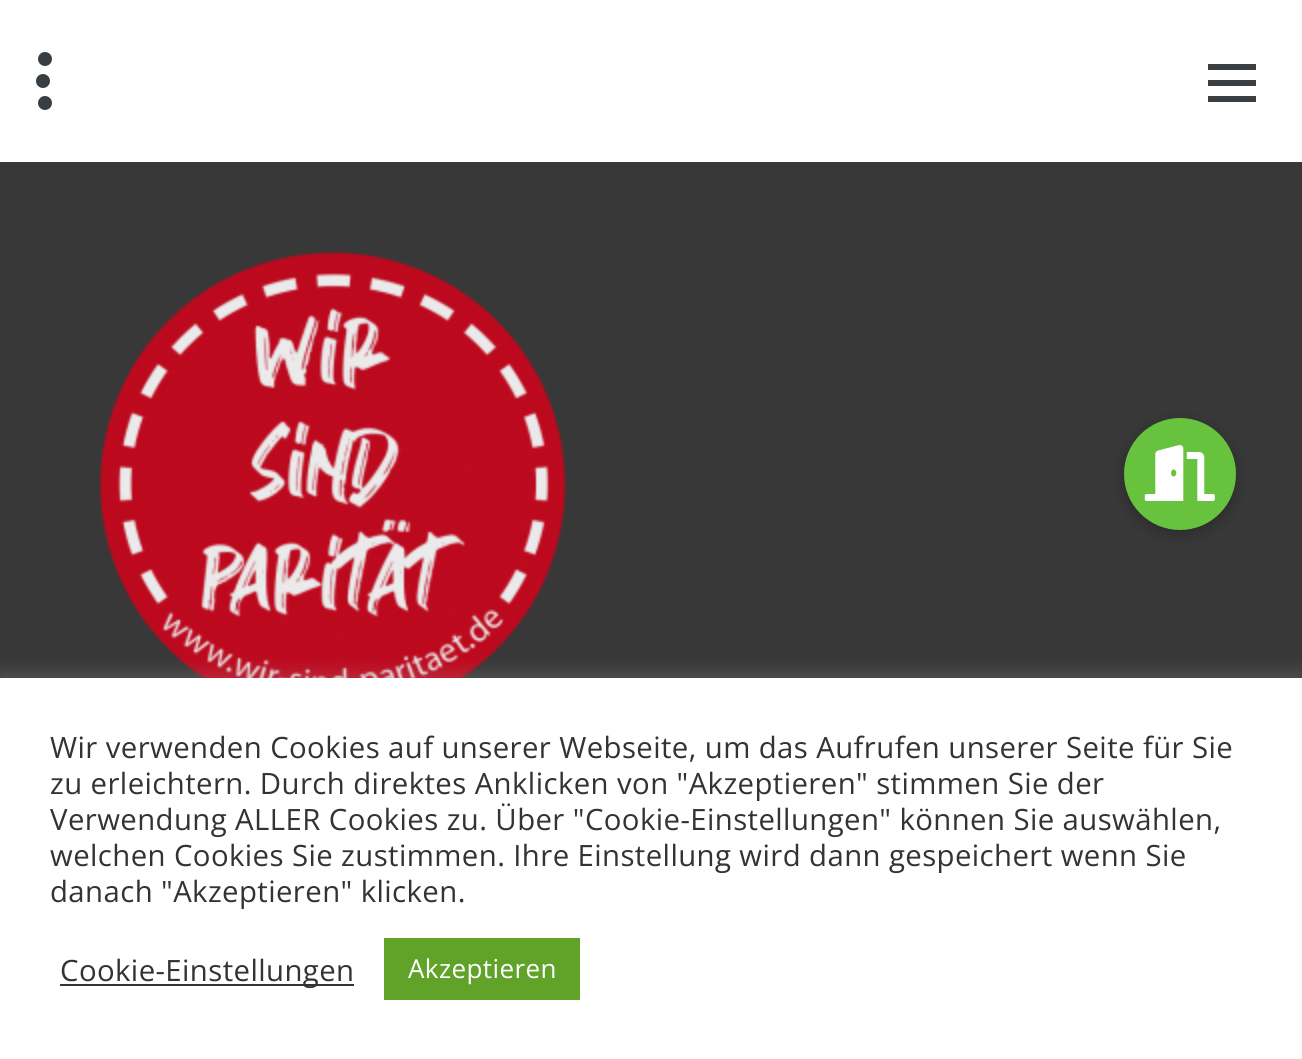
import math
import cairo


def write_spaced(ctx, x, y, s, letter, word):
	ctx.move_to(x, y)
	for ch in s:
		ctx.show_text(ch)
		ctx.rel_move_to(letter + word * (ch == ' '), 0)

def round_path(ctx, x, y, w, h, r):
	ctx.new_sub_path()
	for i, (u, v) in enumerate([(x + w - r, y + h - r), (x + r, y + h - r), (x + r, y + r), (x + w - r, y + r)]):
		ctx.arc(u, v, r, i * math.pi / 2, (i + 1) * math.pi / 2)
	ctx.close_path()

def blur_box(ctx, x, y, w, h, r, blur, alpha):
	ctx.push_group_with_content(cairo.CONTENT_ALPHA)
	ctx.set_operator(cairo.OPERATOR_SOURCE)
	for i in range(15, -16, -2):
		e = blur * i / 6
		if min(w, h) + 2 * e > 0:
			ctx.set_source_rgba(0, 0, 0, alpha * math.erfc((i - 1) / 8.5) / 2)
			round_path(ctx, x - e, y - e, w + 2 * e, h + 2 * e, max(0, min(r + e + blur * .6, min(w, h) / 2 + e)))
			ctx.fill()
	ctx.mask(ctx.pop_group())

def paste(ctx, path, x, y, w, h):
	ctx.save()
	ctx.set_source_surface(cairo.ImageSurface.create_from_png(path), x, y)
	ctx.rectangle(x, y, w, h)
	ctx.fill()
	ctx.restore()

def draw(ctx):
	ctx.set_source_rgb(0.22, 0.22, 0.22)
	ctx.paint()
	ctx.set_source_rgb(1, 1, 1)
	ctx.rectangle(0, 0, 1302, 162)
	ctx.fill()
	ctx.set_source_rgb(0.22, 0.243, 0.255)
	ctx.arc(43, 81, 7, 0, 2 * math.pi)
	ctx.fill()
	ctx.arc(45, 59, 7, 0, 2 * math.pi)
	ctx.fill()
	ctx.arc(45, 103, 7, 0, 2 * math.pi)
	ctx.fill()
	ctx.rectangle(1208, 64, 48, 6)
	ctx.rectangle(1208, 80, 48, 6)
	ctx.rectangle(1208, 96, 48, 6)
	ctx.fill()
	paste(ctx, 'media/1.png', 99, 251, 468, 427)
	ctx.set_source_rgb(0, 0, 0)
	blur_box(ctx, 1122, 420, 116, 116, 58, 6, 0.2)
	ctx.set_source_rgb(0.404, 0.765, 0.239)
	ctx.arc(1180, 474, 56, 0, 2 * math.pi)
	ctx.fill()
	paste(ctx, 'media/2.png', 1144, 445, 71, 56)
	ctx.set_source_rgb(0.675, 0.671, 0.671)
	blur_box(ctx, 0, 676, 1302, 382, 0, 10, 0.3)
	ctx.set_source_rgb(1, 1, 1)
	ctx.rectangle(0, 678, 1302, 381)
	ctx.fill()
	ctx.select_font_face('Open Sans')
	ctx.set_font_size(29.35)
	ctx.set_source_rgb(0.2, 0.2, 0.2)
	for x, y, s in [
		(50, 758, 'Wir verwenden Cookies auf unserer Webseite, um das Aufrufen unserer Seite für Sie'),
		(50, 794, 'zu erleichtern. Durch direktes Anklicken von "Akzeptieren" stimmen Sie der'),
		(50, 830, 'Verwendung ALLER Cookies zu. Über "Cookie-Einstellungen" können Sie auswählen,'),
		(50, 866, 'welchen Cookies Sie zustimmen. Ihre Einstellung wird dann gespeichert wenn Sie'),
		(50, 902, 'danach "Akzeptieren" klicken.'),
	]:
		write_spaced(ctx, x, y, s, 0.4, 0)
	ctx.rectangle(60, 984, 294, 2)
	ctx.fill()
	write_spaced(ctx, 60, 981, 'Cookie-Einstellungen', 0.4, 0)
	ctx.set_source_rgb(0.38, 0.635, 0.161)
	ctx.rectangle(384, 938, 196, 62)
	ctx.fill()
	ctx.set_font_size(26)
	ctx.set_source_rgb(1, 1, 1)
	write_spaced(ctx, 408, 978, 'Akzeptieren', 0.4, 0)


surface = cairo.ImageSurface(cairo.FORMAT_RGB24, 1302, 1059)
ctx = cairo.Context(surface)
options = cairo.FontOptions()
options.set_hint_metrics(cairo.HINT_METRICS_OFF)
options.set_hint_style(cairo.HINT_STYLE_NONE)
ctx.set_font_options(options)
ctx.set_miter_limit(4)
draw(ctx)
surface.write_to_png('image.png')
